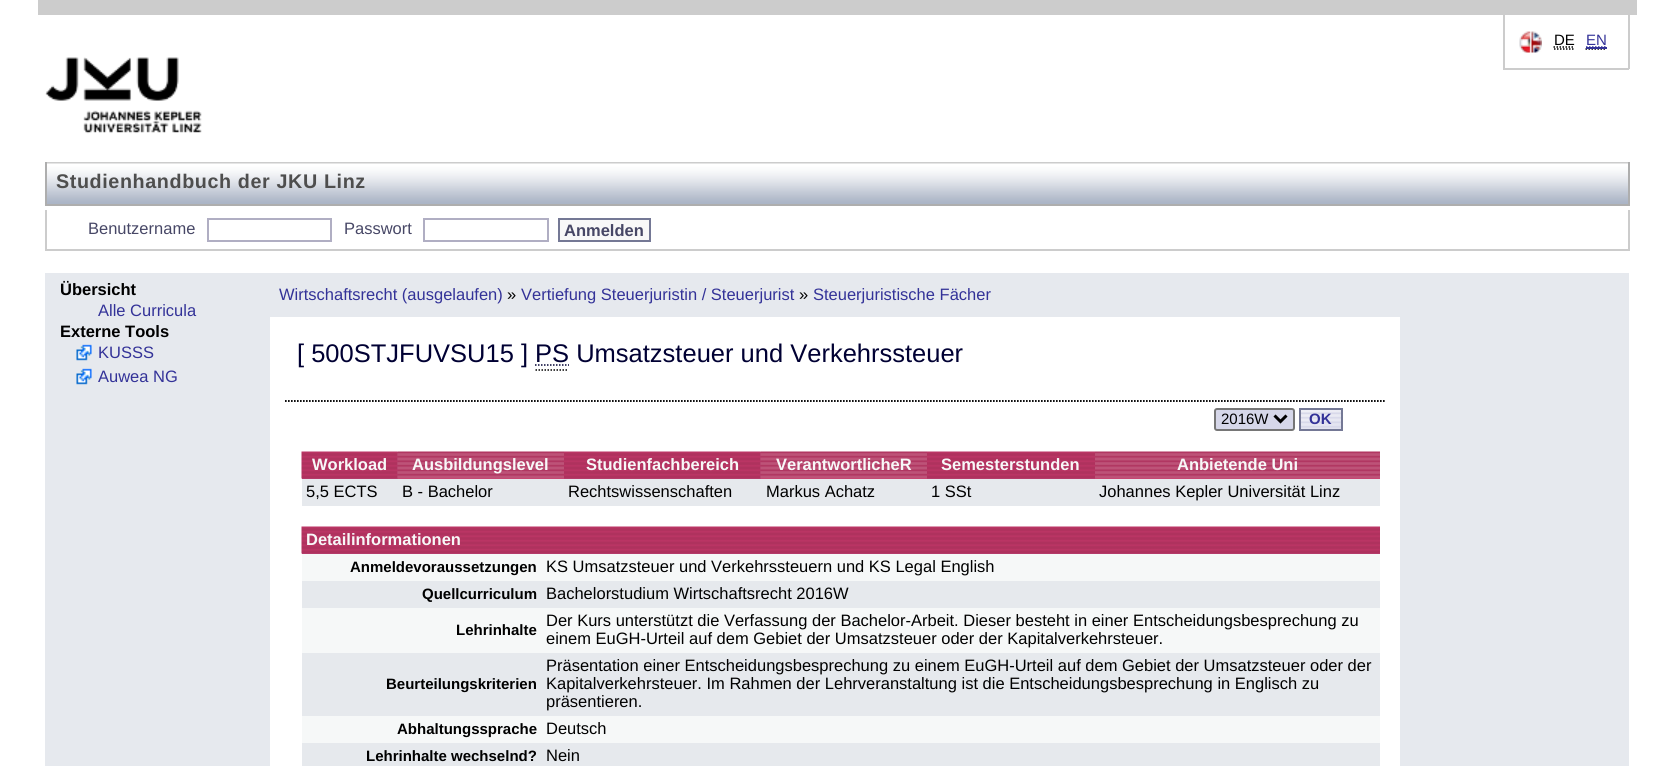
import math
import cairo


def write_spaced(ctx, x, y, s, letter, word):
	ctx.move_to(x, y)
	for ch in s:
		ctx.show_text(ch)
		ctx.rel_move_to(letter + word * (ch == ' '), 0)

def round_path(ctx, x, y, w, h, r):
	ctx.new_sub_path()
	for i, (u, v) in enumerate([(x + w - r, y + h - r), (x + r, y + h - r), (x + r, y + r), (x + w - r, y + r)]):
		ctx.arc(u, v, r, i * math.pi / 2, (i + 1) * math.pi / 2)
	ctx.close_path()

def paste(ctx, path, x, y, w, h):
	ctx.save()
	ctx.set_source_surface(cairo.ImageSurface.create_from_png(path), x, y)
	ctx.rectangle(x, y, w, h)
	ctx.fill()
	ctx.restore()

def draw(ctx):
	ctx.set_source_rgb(1, 1, 1)
	ctx.paint()
	ctx.set_source_rgb(0.8, 0.8, 0.8)
	ctx.rectangle(38, 0, 1599, 15)
	ctx.rectangle(1628, 15, 2, 54)
	ctx.rectangle(1503, 68, 126, 2)
	ctx.rectangle(1503, 15, 2, 54)
	ctx.fill()
	paste(ctx, 'media/1.png', 1519, 31, 23, 22)
	ctx.select_font_face('Liberation Sans')
	ctx.set_font_size(15)
	ctx.set_source_rgb(0, 0, 0)
	ctx.move_to(1554, 45)
	ctx.show_text('DE')
	ctx.new_path()
	ctx.move_to(1554, 49)
	ctx.line_to(1573.5, 49)
	ctx.move_to(1553.5, 47)
	ctx.line_to(1574, 47)
	ctx.set_line_width(1.5)
	ctx.set_dash([1.5, 1.5])
	ctx.stroke()
	ctx.set_source_rgb(0.2, 0.196, 0.596)
	ctx.move_to(1586, 45)
	ctx.show_text('EN')
	ctx.new_path()
	ctx.move_to(1585.5, 49)
	ctx.line_to(1606.5, 49)
	ctx.set_source_rgb(0, 0, 0)
	ctx.stroke()
	ctx.new_path()
	ctx.move_to(1586, 47)
	ctx.line_to(1606.5, 47)
	ctx.set_source_rgb(0.2, 0.196, 0.596)
	ctx.stroke()
	ctx.rectangle(1586, 47, 21, 2)
	ctx.fill()
	paste(ctx, 'media/2.png', 45, 57, 157, 77)
	paste(ctx, 'media/3.png', 47, 162, 1581, 42)
	ctx.set_source_rgb(0.682, 0.682, 0.682)
	ctx.rectangle(1628, 162, 2, 44)
	ctx.rectangle(45, 204, 1584, 2)
	ctx.rectangle(45, 162, 2, 44)
	ctx.fill()
	ctx.select_font_face('Liberation Sans', cairo.FONT_SLANT_NORMAL, cairo.FONT_WEIGHT_BOLD)
	ctx.set_font_size(19.75)
	ctx.set_source_rgb(0.306, 0.306, 0.306)
	write_spaced(ctx, 56, 188, 'Studienhandbuch der JKU Linz', 0.6, 0)
	ctx.set_source_rgb(0.8, 0.8, 0.8)
	ctx.rectangle(1628, 210, 2, 41)
	ctx.rectangle(45, 249, 1584, 2)
	ctx.rectangle(45, 210, 2, 41)
	ctx.fill()
	ctx.select_font_face('Liberation Sans')
	ctx.set_font_size(16.5)
	ctx.set_source_rgb(0.278, 0.278, 0.4)
	ctx.move_to(88, 234)
	ctx.show_text('Benutzername')
	ctx.rectangle(208, 219, 123, 22)
	ctx.set_source_rgb(0.69, 0.682, 0.765)
	ctx.set_line_width(2)
	ctx.set_dash([])
	ctx.stroke()
	ctx.set_source_rgb(0.278, 0.278, 0.4)
	ctx.move_to(344, 234)
	ctx.show_text('Passwort')
	ctx.rectangle(424, 219, 124, 22)
	ctx.set_source_rgb(0.69, 0.682, 0.765)
	ctx.stroke()
	ctx.set_source_rgb(0.969, 0.969, 0.969)
	ctx.rectangle(559, 219, 91, 22)
	ctx.fill_preserve()
	ctx.set_source_rgb(0.455, 0.471, 0.584)
	ctx.stroke()
	ctx.select_font_face('Liberation Sans', cairo.FONT_SLANT_NORMAL, cairo.FONT_WEIGHT_BOLD)
	ctx.set_source_rgb(0.278, 0.278, 0.4)
	ctx.move_to(564, 236)
	ctx.show_text('Anmelden')
	ctx.set_source_rgb(0.902, 0.914, 0.933)
	ctx.rectangle(45, 273, 225, 493)
	ctx.fill()
	ctx.set_source_rgb(0, 0, 0)
	ctx.move_to(60, 295)
	ctx.show_text('Übersicht')
	ctx.select_font_face('Liberation Sans')
	ctx.set_source_rgb(0.2, 0.196, 0.596)
	ctx.move_to(98, 316)
	ctx.show_text('Alle Curricula')
	ctx.select_font_face('Liberation Sans', cairo.FONT_SLANT_NORMAL, cairo.FONT_WEIGHT_BOLD)
	ctx.set_source_rgb(0, 0, 0)
	ctx.move_to(60, 337)
	ctx.show_text('Externe Tools')
	paste(ctx, 'media/4.png', 76, 344, 16, 17)
	ctx.select_font_face('Liberation Sans')
	ctx.set_source_rgb(0.2, 0.196, 0.596)
	ctx.move_to(98, 358)
	ctx.show_text('KUSSS')
	paste(ctx, 'media/4.png', 76, 368, 16, 17)
	ctx.move_to(98, 382)
	ctx.show_text('Auwea NG')
	ctx.set_source_rgb(0.902, 0.914, 0.933)
	ctx.rectangle(270, 273, 1359, 44)
	ctx.fill()
	ctx.set_source_rgb(0.2, 0.196, 0.596)
	ctx.move_to(279, 300)
	ctx.show_text('Wirtschaftsrecht (ausgelaufen)')
	ctx.set_source_rgb(0, 0, 0)
	ctx.move_to(507, 300)
	ctx.show_text('»')
	ctx.set_source_rgb(0.2, 0.196, 0.596)
	ctx.move_to(521, 300)
	ctx.show_text('Vertiefung Steuerjuristin / Steuerjurist')
	ctx.set_source_rgb(0, 0, 0)
	ctx.move_to(799, 300)
	ctx.show_text('»')
	ctx.set_source_rgb(0.2, 0.196, 0.596)
	ctx.move_to(813, 300)
	ctx.show_text('Steuerjuristische Fächer')
	ctx.set_source_rgb(0.902, 0.914, 0.933)
	ctx.rectangle(1400, 315, 2, 451)
	ctx.fill()
	ctx.new_path()
	ctx.move_to(285, 401)
	ctx.line_to(1384.5, 401)
	ctx.set_source_rgb(0, 0, 0)
	ctx.set_line_width(1.5)
	ctx.set_dash([1.5, 1.5])
	ctx.stroke()
	ctx.new_path()
	ctx.move_to(285, 401)
	ctx.line_to(1384.5, 401)
	ctx.stroke()
	ctx.set_font_size(25.5)
	ctx.set_source_rgb(0, 0, 0.2)
	ctx.move_to(297, 362)
	ctx.show_text('[ 500STJFUVSU15 ] PS Umsatzsteuer und Verkehrssteuer')
	ctx.new_path()
	ctx.move_to(535, 365)
	ctx.line_to(569, 365)
	ctx.stroke()
	ctx.new_path()
	ctx.move_to(535.5, 370)
	ctx.line_to(568.5, 370)
	ctx.set_source_rgb(0, 0, 0)
	ctx.stroke()
	ctx.set_source_rgb(0.839, 0.843, 0.914)
	round_path(ctx, 1215, 409, 79, 21, 2)
	ctx.fill_preserve()
	ctx.set_source_rgb(0.463, 0.463, 0.463)
	ctx.set_line_width(2)
	ctx.set_dash([])
	ctx.stroke()
	ctx.new_path()
	ctx.move_to(1274.5, 415.5)
	ctx.line_to(1280.5, 421.5)
	ctx.line_to(1286.5, 415.5)
	ctx.set_source_rgb(0, 0, 0)
	ctx.set_line_width(3)
	ctx.stroke()
	ctx.set_font_size(15)
	ctx.move_to(1221, 424)
	ctx.show_text('2016W')
	paste(ctx, 'media/5.png', 1301, 410, 40, 19)
	ctx.rectangle(1300, 409, 42, 21)
	ctx.set_source_rgb(0.455, 0.471, 0.584)
	ctx.set_line_width(2)
	ctx.stroke()
	ctx.select_font_face('Liberation Sans', cairo.FONT_SLANT_NORMAL, cairo.FONT_WEIGHT_BOLD)
	ctx.set_source_rgb(0.2, 0.196, 0.596)
	ctx.move_to(1309, 424)
	ctx.show_text('OK')
	ctx.set_source_rgb(0.698, 0.263, 0.447)
	ctx.rectangle(302, 452, 96, 27)
	ctx.fill()
	paste(ctx, 'media/6.png', 301, 451, 97, 28)
	ctx.set_font_size(16.5)
	ctx.set_source_rgb(0.969, 0.969, 0.969)
	ctx.move_to(312, 470)
	ctx.show_text('Workload')
	ctx.set_source_rgb(0.816, 0.231, 0.435)
	ctx.rectangle(398, 478, 166, 1)
	ctx.fill()
	paste(ctx, 'media/7.png', 397, 451, 167, 28)
	ctx.set_source_rgb(0.969, 0.969, 0.969)
	ctx.move_to(412, 470)
	ctx.show_text('Ausbildungslevel')
	ctx.set_source_rgb(0.698, 0.263, 0.447)
	ctx.rectangle(564, 452, 197, 27)
	ctx.fill()
	paste(ctx, 'media/8.png', 564, 451, 197, 28)
	ctx.set_source_rgb(0.969, 0.969, 0.969)
	ctx.move_to(586, 470)
	ctx.show_text('Studienfachbereich')
	ctx.set_source_rgb(0.816, 0.231, 0.435)
	ctx.rectangle(761, 478, 166, 1)
	ctx.fill()
	paste(ctx, 'media/7.png', 760, 451, 167, 28)
	ctx.set_source_rgb(0.969, 0.969, 0.969)
	ctx.move_to(776, 470)
	ctx.show_text('VerantwortlicheR')
	ctx.set_source_rgb(0.698, 0.263, 0.447)
	ctx.rectangle(927, 478, 168, 1)
	ctx.fill()
	paste(ctx, 'media/9.png', 927, 451, 168, 28)
	ctx.set_source_rgb(0.969, 0.969, 0.969)
	ctx.move_to(941, 470)
	ctx.show_text('Semesterstunden')
	ctx.set_source_rgb(0.816, 0.231, 0.435)
	ctx.rectangle(1095, 478, 285, 1)
	ctx.fill()
	paste(ctx, 'media/10.png', 1095, 451, 285, 28)
	ctx.set_source_rgb(0.969, 0.969, 0.969)
	ctx.move_to(1177, 470)
	ctx.show_text('Anbietende Uni')
	ctx.set_source_rgb(0.902, 0.914, 0.929)
	ctx.rectangle(302, 479, 1078, 27)
	ctx.fill()
	ctx.select_font_face('Liberation Sans')
	ctx.set_source_rgb(0, 0, 0)
	for x, y, s in [
		(306, 497, '5,5 ECTS'),
		(402, 497, 'B - Bachelor'),
		(568, 497, 'Rechtswissenschaften'),
		(766, 497, 'Markus Achatz'),
		(931, 497, '1 SSt'),
		(1099, 497, 'Johannes Kepler Universität Linz'),
	]:
		ctx.move_to(x, y)
		ctx.show_text(s)
	ctx.set_source_rgb(0.698, 0.263, 0.447)
	ctx.rectangle(302, 553, 1078, 1)
	ctx.fill()
	paste(ctx, 'media/11.png', 301, 526, 1079, 28)
	ctx.select_font_face('Liberation Sans', cairo.FONT_SLANT_NORMAL, cairo.FONT_WEIGHT_BOLD)
	ctx.set_source_rgb(0.969, 0.969, 0.969)
	ctx.move_to(306, 545)
	ctx.show_text('Detailinformationen')
	ctx.set_source_rgb(0.961, 0.969, 0.969)
	ctx.rectangle(302, 554, 1078, 27)
	ctx.fill()
	ctx.set_font_size(15)
	ctx.set_source_rgb(0, 0, 0)
	ctx.move_to(350, 572)
	ctx.show_text('Anmeldevoraussetzungen')
	ctx.select_font_face('Liberation Sans')
	ctx.set_font_size(16.5)
	ctx.move_to(546, 572)
	ctx.show_text('KS Umsatzsteuer und Verkehrssteuern und KS Legal English')
	ctx.set_source_rgb(0.902, 0.914, 0.929)
	ctx.rectangle(302, 581, 1078, 27)
	ctx.fill()
	ctx.select_font_face('Liberation Sans', cairo.FONT_SLANT_NORMAL, cairo.FONT_WEIGHT_BOLD)
	ctx.set_font_size(15)
	ctx.set_source_rgb(0, 0, 0)
	ctx.move_to(422, 599)
	ctx.show_text('Quellcurriculum')
	ctx.select_font_face('Liberation Sans')
	ctx.set_font_size(16.5)
	ctx.move_to(546, 599)
	ctx.show_text('Bachelorstudium Wirtschaftsrecht 2016W')
	ctx.set_source_rgb(0.961, 0.969, 0.969)
	ctx.rectangle(302, 608, 1078, 45)
	ctx.fill()
	ctx.select_font_face('Liberation Sans', cairo.FONT_SLANT_NORMAL, cairo.FONT_WEIGHT_BOLD)
	ctx.set_font_size(15)
	ctx.set_source_rgb(0, 0, 0)
	ctx.move_to(456, 635)
	ctx.show_text('Lehrinhalte')
	ctx.select_font_face('Liberation Sans')
	ctx.set_font_size(16.5)
	ctx.move_to(546, 626)
	ctx.show_text('Der Kurs unterstützt die Verfassung der Bachelor-Arbeit. Dieser besteht in einer Entscheidungsbesprechung zu')
	ctx.move_to(546, 644)
	ctx.show_text('einem EuGH-Urteil auf dem Gebiet der Umsatzsteuer oder der Kapitalverkehrsteuer.')
	ctx.set_source_rgb(0.902, 0.914, 0.929)
	ctx.rectangle(302, 653, 1078, 63)
	ctx.fill()
	ctx.select_font_face('Liberation Sans', cairo.FONT_SLANT_NORMAL, cairo.FONT_WEIGHT_BOLD)
	ctx.set_font_size(15)
	ctx.set_source_rgb(0, 0, 0)
	ctx.move_to(386, 689)
	ctx.show_text('Beurteilungskriterien')
	ctx.select_font_face('Liberation Sans')
	ctx.set_font_size(16.5)
	for x, y, s in [
		(546, 671, 'Präsentation einer Entscheidungsbesprechung zu einem EuGH-Urteil auf dem Gebiet der Umsatzsteuer oder der'),
		(546, 689, 'Kapitalverkehrsteuer. Im Rahmen der Lehrveranstaltung ist die Entscheidungsbesprechung in Englisch zu'),
		(546, 707, 'präsentieren.'),
	]:
		ctx.move_to(x, y)
		ctx.show_text(s)
	ctx.set_source_rgb(0.961, 0.969, 0.969)
	ctx.rectangle(302, 716, 1078, 27)
	ctx.fill()
	ctx.select_font_face('Liberation Sans', cairo.FONT_SLANT_NORMAL, cairo.FONT_WEIGHT_BOLD)
	ctx.set_font_size(15)
	ctx.set_source_rgb(0, 0, 0)
	ctx.move_to(397, 734)
	ctx.show_text('Abhaltungssprache')
	ctx.select_font_face('Liberation Sans')
	ctx.set_font_size(16.5)
	ctx.move_to(546, 734)
	ctx.show_text('Deutsch')
	ctx.set_source_rgb(0.902, 0.914, 0.929)
	ctx.rectangle(302, 743, 1078, 23)
	ctx.fill()
	ctx.select_font_face('Liberation Sans', cairo.FONT_SLANT_NORMAL, cairo.FONT_WEIGHT_BOLD)
	ctx.set_font_size(15)
	ctx.set_source_rgb(0, 0, 0)
	ctx.move_to(366, 761)
	ctx.show_text('Lehrinhalte wechselnd?')
	ctx.select_font_face('Liberation Sans')
	ctx.set_font_size(16.5)
	ctx.move_to(546, 761)
	ctx.show_text('Nein')
	ctx.set_source_rgb(0.902, 0.914, 0.933)
	ctx.rectangle(1402, 317, 227, 449)
	ctx.fill()


surface = cairo.ImageSurface(cairo.FORMAT_RGB24, 1674, 766)
ctx = cairo.Context(surface)
options = cairo.FontOptions()
options.set_hint_metrics(cairo.HINT_METRICS_OFF)
options.set_hint_style(cairo.HINT_STYLE_NONE)
ctx.set_font_options(options)
ctx.set_miter_limit(4)
draw(ctx)
surface.write_to_png('image.png')
